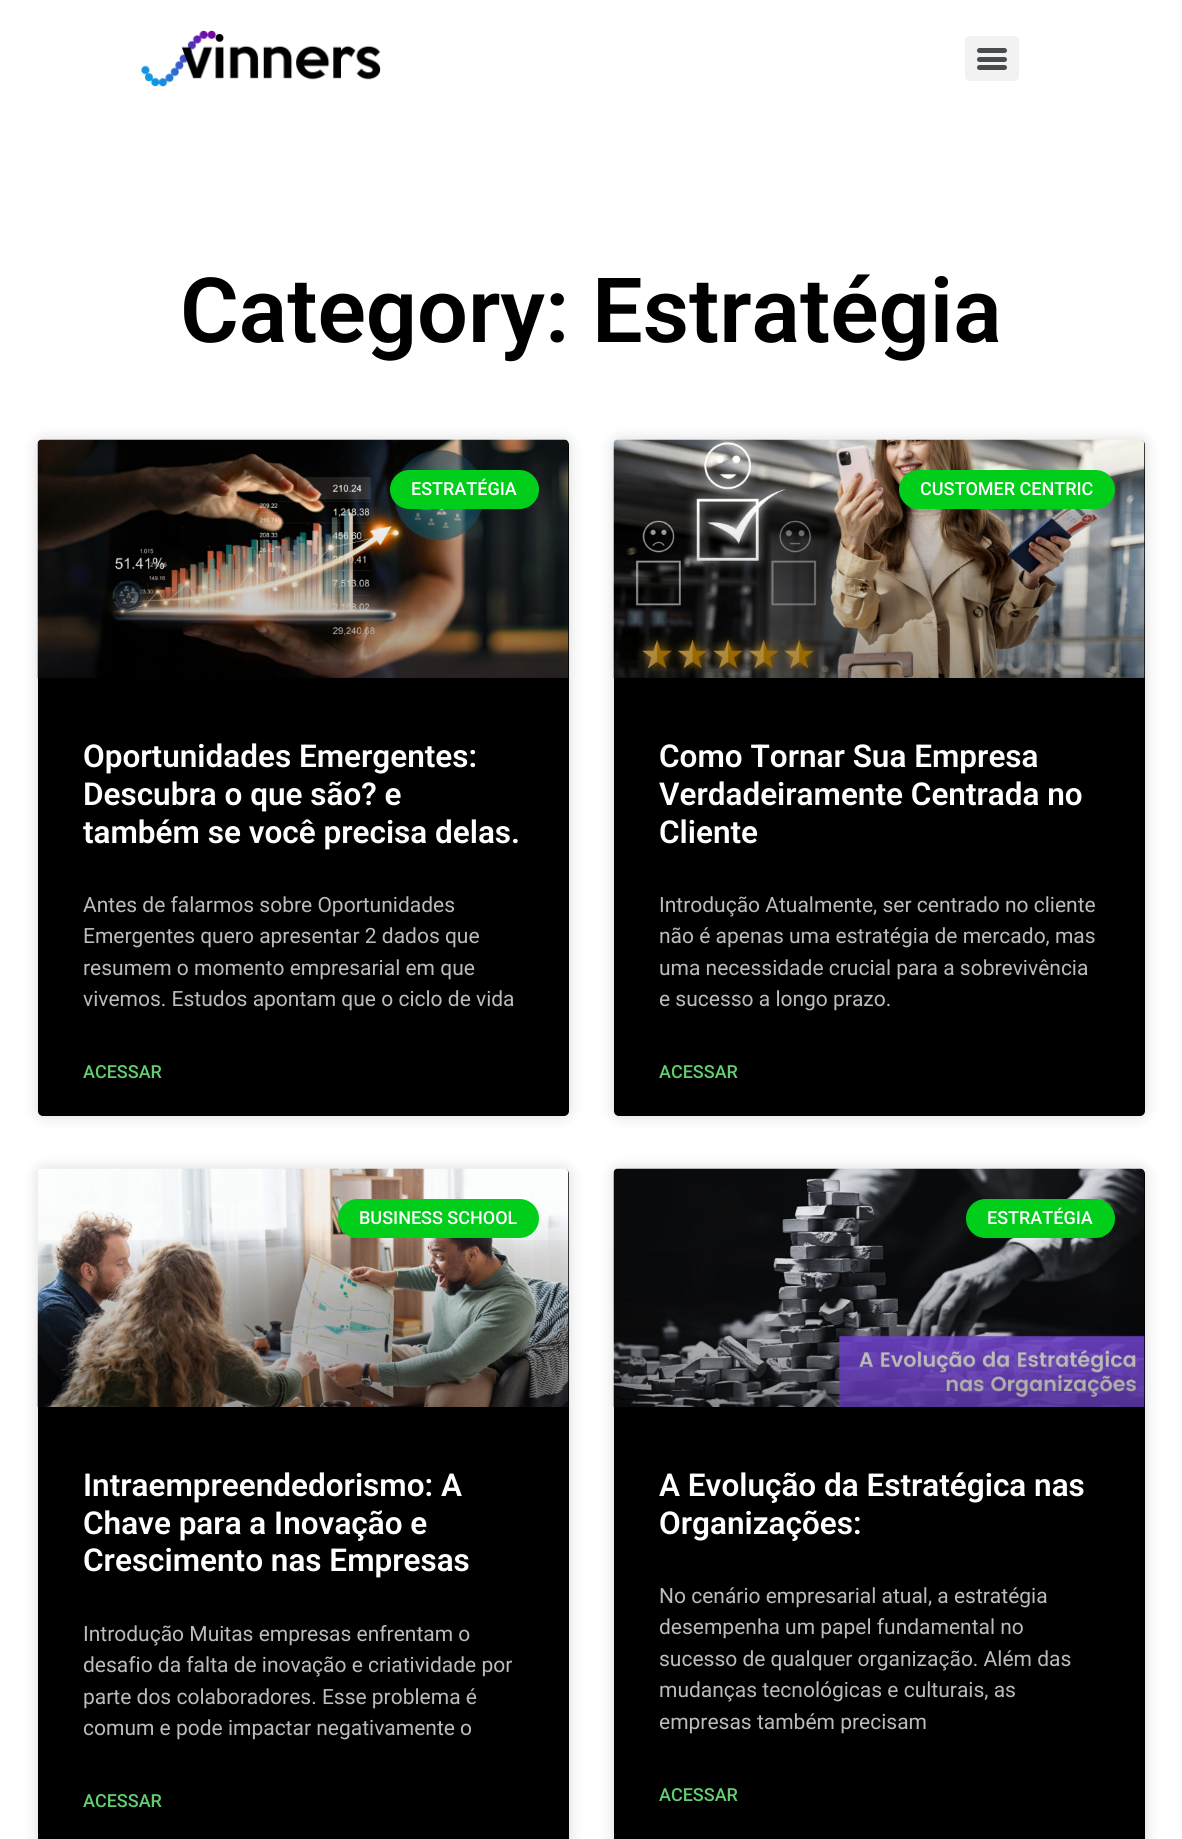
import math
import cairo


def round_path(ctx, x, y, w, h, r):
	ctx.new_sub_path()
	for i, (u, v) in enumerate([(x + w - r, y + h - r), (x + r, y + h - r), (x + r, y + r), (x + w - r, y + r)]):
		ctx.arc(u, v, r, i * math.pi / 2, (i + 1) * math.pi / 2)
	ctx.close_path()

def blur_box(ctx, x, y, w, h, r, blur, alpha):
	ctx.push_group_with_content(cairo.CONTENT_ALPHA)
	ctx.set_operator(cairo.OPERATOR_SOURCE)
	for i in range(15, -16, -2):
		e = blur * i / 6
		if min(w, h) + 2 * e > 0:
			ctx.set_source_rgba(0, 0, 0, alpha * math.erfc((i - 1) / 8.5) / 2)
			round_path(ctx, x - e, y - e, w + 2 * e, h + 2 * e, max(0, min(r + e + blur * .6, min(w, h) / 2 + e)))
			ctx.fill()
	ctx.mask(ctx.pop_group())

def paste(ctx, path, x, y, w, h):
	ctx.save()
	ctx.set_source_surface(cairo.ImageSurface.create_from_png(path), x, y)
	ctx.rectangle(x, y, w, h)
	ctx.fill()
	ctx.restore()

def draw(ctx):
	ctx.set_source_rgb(1, 1, 1)
	ctx.paint()
	paste(ctx, 'media/1.png', 141, 30, 240, 57)
	ctx.set_source_rgb(0.949, 0.949, 0.949)
	round_path(ctx, 965, 36, 54, 45, 5)
	ctx.fill()
	ctx.set_source_rgb(0.286, 0.298, 0.31)
	round_path(ctx, 977, 57, 30, 5, 2.5)
	ctx.fill()
	round_path(ctx, 977, 48, 30, 5, 2.5)
	ctx.fill()
	round_path(ctx, 977, 65, 30, 5, 2.5)
	ctx.fill()
	ctx.select_font_face('Roboto SemiBold')
	ctx.set_font_size(90)
	ctx.set_source_rgb(0, 0, 0)
	ctx.move_to(180, 342)
	ctx.show_text('Category: Estratégia')
	ctx.set_source_rgb(0, 0, 0)
	blur_box(ctx, 38, 440, 531, 676, 5, 7.5, 0.15)
	ctx.set_source_rgb(0, 0, 0)
	round_path(ctx, 38, 440, 531, 676, 5)
	ctx.fill()
	paste(ctx, 'media/2.png', 37, 439, 532, 239)
	gradient = cairo.LinearGradient(303, 678, 303, 440)
	gradient.add_color_stop_rgba(0, 0, 0, 0, 0.35)
	gradient.add_color_stop_rgba(0.75, 0, 0, 0, 0)
	ctx.set_source(gradient)
	ctx.rectangle(38, 511, 531, 167)
	ctx.fill()
	ctx.set_source_rgb(0, 0.808, 0.106)
	round_path(ctx, 390, 470, 149, 39, 19.5)
	ctx.fill()
	ctx.select_font_face('Roboto Medium')
	ctx.set_font_size(18)
	ctx.set_source_rgb(1, 1, 1)
	ctx.move_to(411, 495)
	ctx.show_text('ESTRATÉGIA')
	ctx.select_font_face('Roboto SemiBold')
	ctx.set_font_size(31.5)
	for x, y, s in [
		(83, 767, 'Oportunidades Emergentes:'),
		(83, 805, 'Descubra o que são? e'),
		(83, 843, 'também se você precisa delas.'),
	]:
		ctx.move_to(x, y)
		ctx.show_text(s)
	ctx.select_font_face('Roboto')
	ctx.set_font_size(21)
	ctx.set_source_rgb(0.737, 0.737, 0.737)
	for x, y, s in [
		(83, 912, 'Antes de falarmos sobre Oportunidades'),
		(83, 943, 'Emergentes quero apresentar 2 dados que'),
		(83, 975, 'resumem o momento empresarial em que'),
		(83, 1006, 'vivemos. Estudos apontam que o ciclo de vida'),
	]:
		ctx.move_to(x, y)
		ctx.show_text(s)
	ctx.select_font_face('Roboto Medium')
	ctx.set_font_size(18)
	ctx.set_source_rgb(0.38, 0.808, 0.439)
	ctx.move_to(83, 1078)
	ctx.show_text('ACESSAR')
	ctx.set_source_rgb(0, 0, 0)
	blur_box(ctx, 614, 440, 531, 676, 5, 7.5, 0.15)
	ctx.set_source_rgb(0, 0, 0)
	round_path(ctx, 614, 440, 531, 676, 5)
	ctx.fill()
	paste(ctx, 'media/3.png', 613, 439, 532, 239)
	gradient = cairo.LinearGradient(879, 678, 879, 440)
	gradient.add_color_stop_rgba(0, 0, 0, 0, 0.35)
	gradient.add_color_stop_rgba(0.75, 0, 0, 0, 0)
	ctx.set_source(gradient)
	ctx.rectangle(614, 511, 531, 167)
	ctx.fill()
	ctx.set_source_rgb(0, 0.808, 0.106)
	round_path(ctx, 899, 470, 216, 39, 19.5)
	ctx.fill()
	ctx.set_source_rgb(1, 1, 1)
	ctx.move_to(920, 495)
	ctx.show_text('CUSTOMER CENTRIC')
	ctx.select_font_face('Roboto SemiBold')
	ctx.set_font_size(31.5)
	for x, y, s in [
		(659, 767, 'Como Tornar Sua Empresa'),
		(659, 805, 'Verdadeiramente Centrada no'),
		(659, 843, 'Cliente'),
	]:
		ctx.move_to(x, y)
		ctx.show_text(s)
	ctx.select_font_face('Roboto')
	ctx.set_font_size(21)
	ctx.set_source_rgb(0.737, 0.737, 0.737)
	for x, y, s in [
		(659, 912, 'Introdução Atualmente, ser centrado no cliente'),
		(659, 943, 'não é apenas uma estratégia de mercado, mas'),
		(659, 975, 'uma necessidade crucial para a sobrevivência'),
		(659, 1006, 'e sucesso a longo prazo.'),
	]:
		ctx.move_to(x, y)
		ctx.show_text(s)
	ctx.select_font_face('Roboto Medium')
	ctx.set_font_size(18)
	ctx.set_source_rgb(0.38, 0.808, 0.439)
	ctx.move_to(659, 1078)
	ctx.show_text('ACESSAR')
	ctx.set_source_rgb(0, 0, 0)
	blur_box(ctx, 38, 1169, 531, 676, 5, 7.5, 0.15)
	ctx.set_source_rgb(0, 0, 0)
	round_path(ctx, 38, 1169, 531, 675, 5)
	ctx.fill()
	paste(ctx, 'media/4.png', 37, 1168, 532, 239)
	gradient = cairo.LinearGradient(303, 1407, 303, 1169)
	gradient.add_color_stop_rgba(0, 0, 0, 0, 0.35)
	gradient.add_color_stop_rgba(0.75, 0, 0, 0, 0)
	ctx.set_source(gradient)
	ctx.rectangle(38, 1240, 531, 167)
	ctx.fill()
	ctx.set_source_rgb(0, 0.808, 0.106)
	round_path(ctx, 338, 1199, 201, 39, 19.5)
	ctx.fill()
	ctx.set_source_rgb(1, 1, 1)
	ctx.move_to(359, 1224)
	ctx.show_text('BUSINESS SCHOOL')
	ctx.select_font_face('Roboto SemiBold')
	ctx.set_font_size(31.5)
	for x, y, s in [
		(83, 1496, 'Intraempreendedorismo: A'),
		(83, 1534, 'Chave para a Inovação e'),
		(83, 1571, 'Crescimento nas Empresas'),
	]:
		ctx.move_to(x, y)
		ctx.show_text(s)
	ctx.select_font_face('Roboto')
	ctx.set_font_size(21)
	ctx.set_source_rgb(0.737, 0.737, 0.737)
	for x, y, s in [
		(83, 1641, 'Introdução Muitas empresas enfrentam o'),
		(83, 1672, 'desafio da falta de inovação e criatividade por'),
		(83, 1704, 'parte dos colaboradores. Esse problema é'),
		(83, 1735, 'comum e pode impactar negativamente o'),
	]:
		ctx.move_to(x, y)
		ctx.show_text(s)
	ctx.select_font_face('Roboto Medium')
	ctx.set_font_size(18)
	ctx.set_source_rgb(0.38, 0.808, 0.439)
	ctx.move_to(83, 1807)
	ctx.show_text('ACESSAR')
	ctx.set_source_rgb(0, 0, 0)
	blur_box(ctx, 614, 1169, 531, 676, 5, 7.5, 0.15)
	ctx.set_source_rgb(0, 0, 0)
	round_path(ctx, 614, 1169, 531, 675, 5)
	ctx.fill()
	paste(ctx, 'media/5.png', 613, 1168, 532, 239)
	gradient = cairo.LinearGradient(879, 1407, 879, 1169)
	gradient.add_color_stop_rgba(0, 0, 0, 0, 0.35)
	gradient.add_color_stop_rgba(0.75, 0, 0, 0, 0)
	ctx.set_source(gradient)
	ctx.rectangle(614, 1240, 531, 167)
	ctx.fill()
	ctx.set_source_rgb(0, 0.808, 0.106)
	round_path(ctx, 966, 1199, 149, 39, 19.5)
	ctx.fill()
	ctx.set_source_rgb(1, 1, 1)
	ctx.move_to(987, 1224)
	ctx.show_text('ESTRATÉGIA')
	ctx.select_font_face('Roboto SemiBold')
	ctx.set_font_size(31.5)
	ctx.move_to(659, 1496)
	ctx.show_text('A Evolução da Estratégica nas')
	ctx.move_to(659, 1534)
	ctx.show_text('Organizações:')
	ctx.select_font_face('Roboto')
	ctx.set_font_size(21)
	ctx.set_source_rgb(0.737, 0.737, 0.737)
	for x, y, s in [
		(659, 1603, 'No cenário empresarial atual, a estratégia'),
		(659, 1634, 'desempenha um papel fundamental no'),
		(659, 1666, 'sucesso de qualquer organização. Além das'),
		(659, 1697, 'mudanças tecnológicas e culturais, as'),
		(659, 1729, 'empresas também precisam'),
	]:
		ctx.move_to(x, y)
		ctx.show_text(s)
	ctx.select_font_face('Roboto Medium')
	ctx.set_font_size(18)
	ctx.set_source_rgb(0.38, 0.808, 0.439)
	ctx.move_to(659, 1801)
	ctx.show_text('ACESSAR')


surface = cairo.ImageSurface(cairo.FORMAT_RGB24, 1182, 1839)
ctx = cairo.Context(surface)
options = cairo.FontOptions()
options.set_hint_metrics(cairo.HINT_METRICS_OFF)
options.set_hint_style(cairo.HINT_STYLE_NONE)
ctx.set_font_options(options)
ctx.set_miter_limit(4)
draw(ctx)
surface.write_to_png('image.png')
